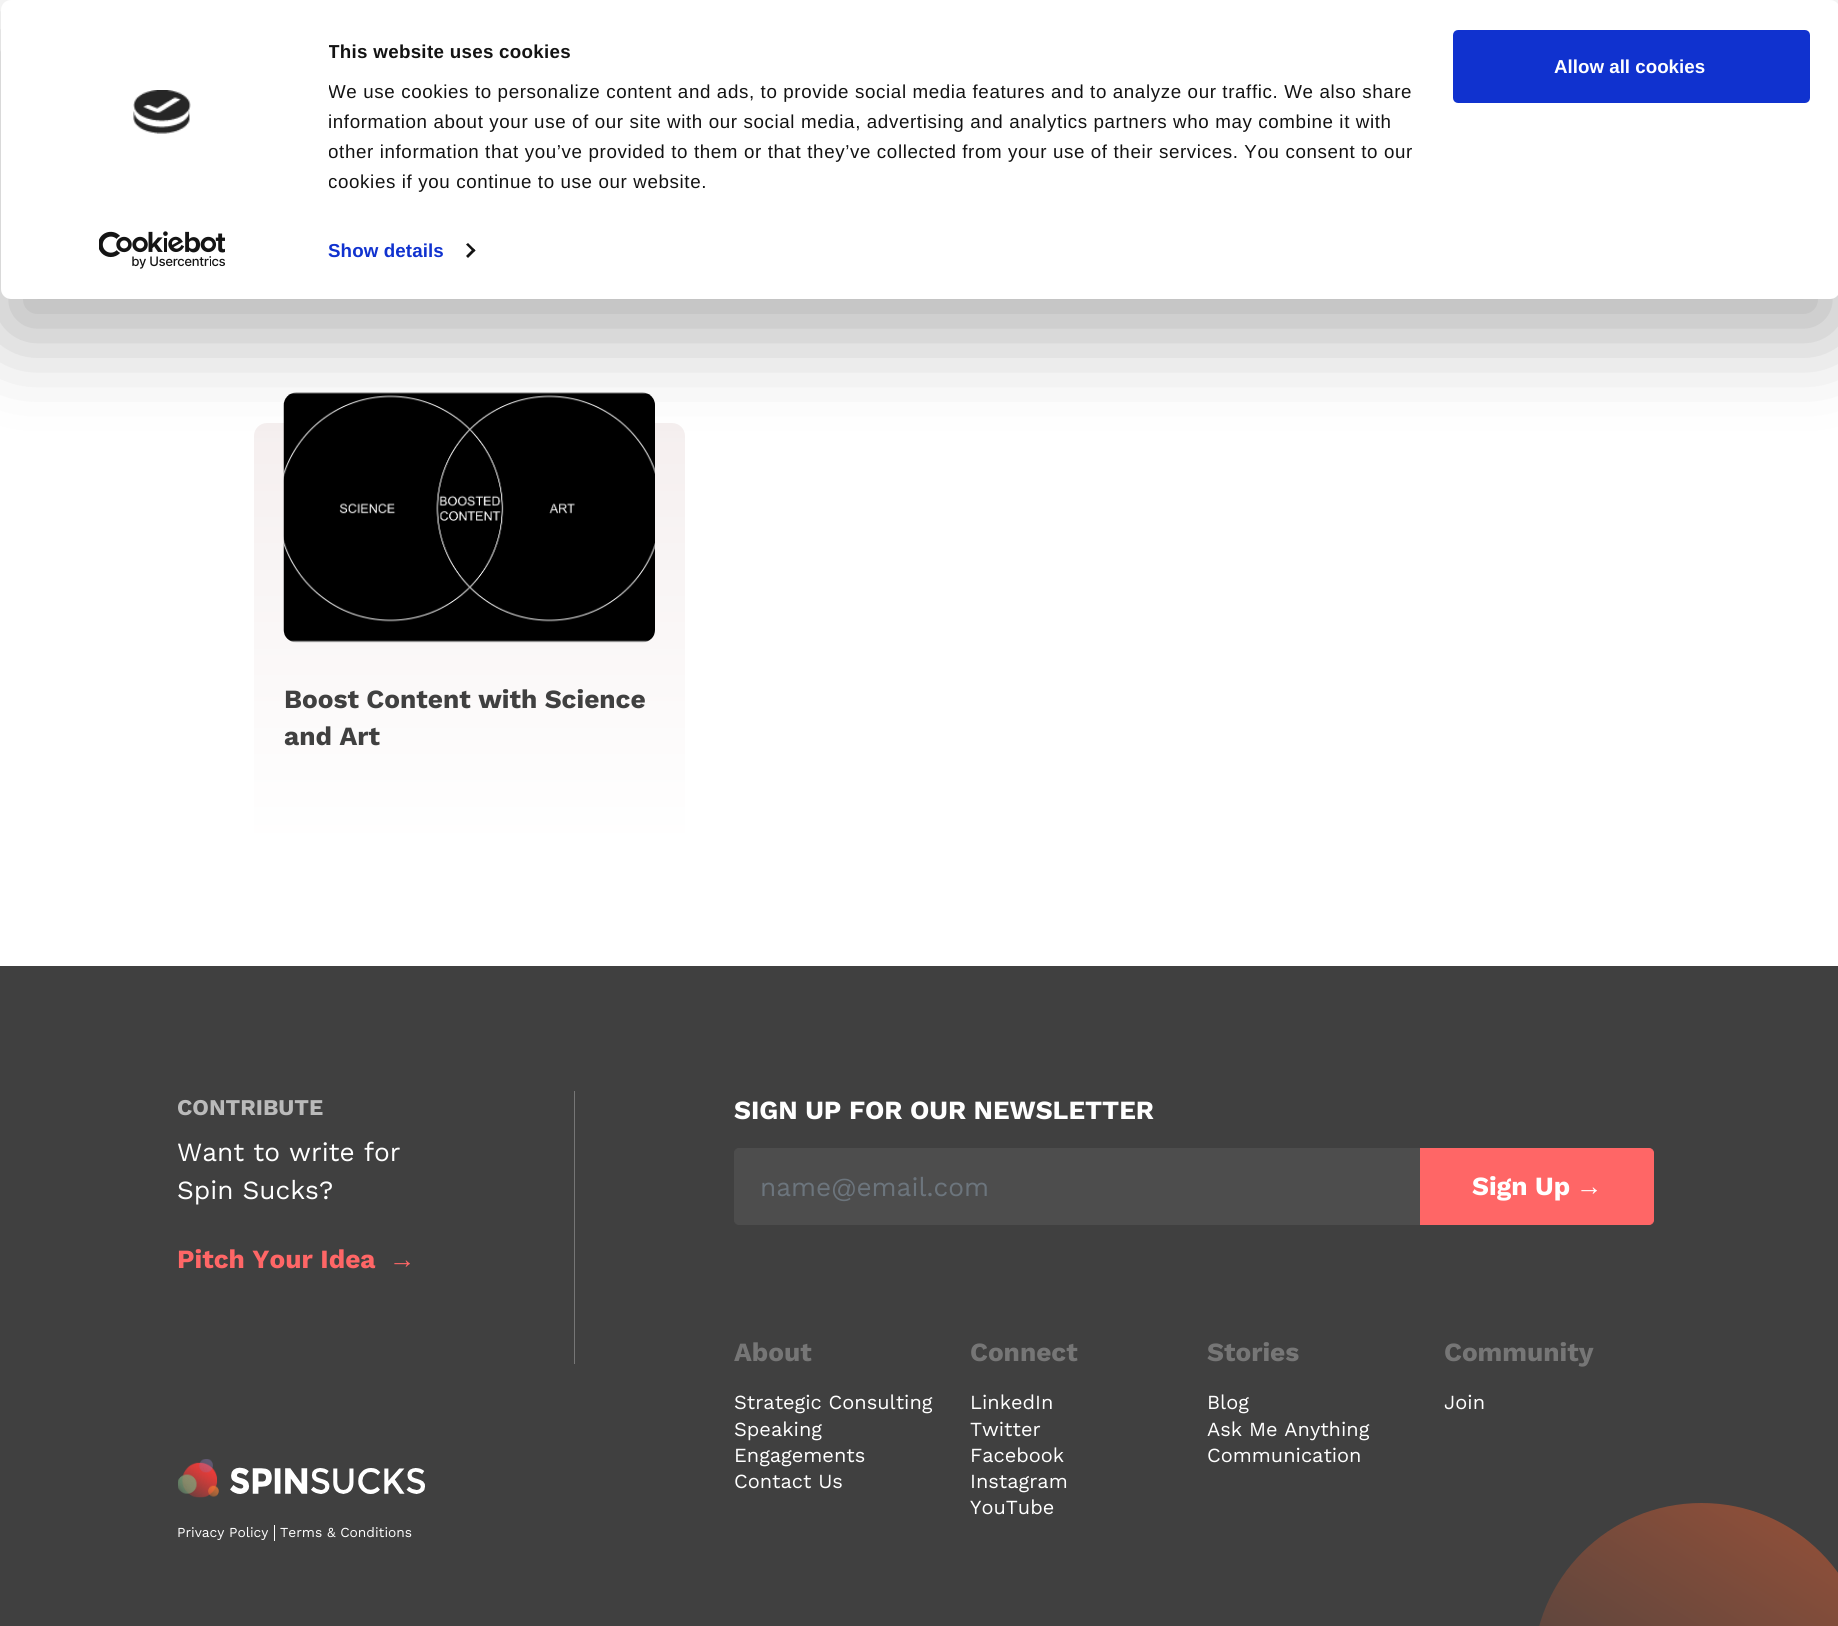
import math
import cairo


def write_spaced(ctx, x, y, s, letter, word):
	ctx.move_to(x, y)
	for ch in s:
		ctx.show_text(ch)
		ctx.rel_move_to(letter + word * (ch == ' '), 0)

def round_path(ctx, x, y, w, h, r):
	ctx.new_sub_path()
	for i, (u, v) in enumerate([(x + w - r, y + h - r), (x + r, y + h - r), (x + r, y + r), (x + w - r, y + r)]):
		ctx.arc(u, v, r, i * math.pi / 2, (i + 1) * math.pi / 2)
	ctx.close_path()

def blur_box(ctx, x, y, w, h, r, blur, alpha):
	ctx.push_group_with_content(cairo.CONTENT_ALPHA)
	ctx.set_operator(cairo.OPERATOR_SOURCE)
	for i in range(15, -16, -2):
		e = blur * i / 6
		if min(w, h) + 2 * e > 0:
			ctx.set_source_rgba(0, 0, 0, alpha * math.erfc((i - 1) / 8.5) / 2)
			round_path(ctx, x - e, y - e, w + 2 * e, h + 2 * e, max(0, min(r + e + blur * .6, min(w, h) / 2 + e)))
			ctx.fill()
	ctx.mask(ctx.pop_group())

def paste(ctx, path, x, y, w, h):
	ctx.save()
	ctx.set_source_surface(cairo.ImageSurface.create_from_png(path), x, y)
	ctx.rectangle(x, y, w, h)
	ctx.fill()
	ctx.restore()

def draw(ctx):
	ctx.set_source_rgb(1, 1, 1)
	ctx.paint()
	gradient = cairo.LinearGradient(469, 423, 469, 846)
	gradient.add_color_stop_rgba(0, 0.961, 0.937, 0.937, 1)
	gradient.add_color_stop_rgba(1, 1, 1, 1, 1)
	ctx.set_source(gradient)
	round_path(ctx, 254, 423, 431, 423, 13)
	ctx.fill()
	paste(ctx, 'media/3.png', 283, 392, 372, 251)
	ctx.set_source_rgb(0, 0, 0)
	blur_box(ctx, 1, 38, 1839, 298, 10, 44, 0.3)
	ctx.set_source_rgb(1, 1, 1)
	round_path(ctx, 1, 0, 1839, 299, 10)
	ctx.fill()
	ctx.save()
	ctx.rectangle(329, 38, 1116, 158)
	ctx.clip()
	ctx.select_font_face('Liberation Sans', cairo.FONT_SLANT_NORMAL, cairo.FONT_WEIGHT_BOLD)
	ctx.set_font_size(18.75)
	ctx.set_source_rgb(0.078, 0.078, 0.078)
	write_spaced(ctx, 328, 58, 'This website uses cookies', 0.3, 0)
	ctx.select_font_face('Liberation Sans')
	for x, y, s in [
		(328, 98, 'We use cookies to personalize content and ads, to provide social media features and to analyze our traffic. We also share'),
		(328, 128, 'information about your use of our site with our social media, advertising and analytics partners who may combine it with'),
		(328, 158, 'other information that you’ve provided to them or that they’ve collected from your use of their services. You consent to our'),
		(328, 188, 'cookies if you continue to use our website.'),
	]:
		write_spaced(ctx, x, y, s, 0.62, 0)
	ctx.restore()
	ctx.select_font_face('Liberation Sans', cairo.FONT_SLANT_NORMAL, cairo.FONT_WEIGHT_BOLD)
	ctx.set_font_size(18.75)
	ctx.set_source_rgb(0.063, 0.196, 0.812)
	write_spaced(ctx, 328, 257, 'Show details', 0.1, 0)
	ctx.set_source_rgb(0.078, 0.078, 0.078)
	ctx.new_path()
	ctx.move_to(468, 243)
	ctx.line_to(475.5, 250.5)
	ctx.line_to(473.5, 252)
	ctx.line_to(466, 244.5)
	ctx.close_path()
	ctx.fill()
	ctx.new_path()
	ctx.move_to(473.5, 248.5)
	ctx.line_to(475.5, 250.5)
	ctx.line_to(468, 258)
	ctx.line_to(466, 256)
	ctx.close_path()
	ctx.fill()
	ctx.set_source_rgb(0.063, 0.196, 0.812)
	round_path(ctx, 1454.5, 31.5, 354, 70, 3.5)
	ctx.fill_preserve()
	ctx.set_line_width(3)
	ctx.stroke()
	ctx.set_source_rgb(1, 1, 1)
	ctx.move_to(1554, 73)
	ctx.show_text('Allow all cookies')
	paste(ctx, 'media/1.png', 133, 90, 58, 44)
	paste(ctx, 'media/2.png', 99, 231, 126, 38)
	ctx.select_font_face('Work Sans', cairo.FONT_SLANT_NORMAL, cairo.FONT_WEIGHT_BOLD)
	ctx.set_font_size(26.25)
	ctx.set_source_rgb(0.251, 0.251, 0.251)
	ctx.move_to(284, 708)
	ctx.show_text('Boost Content with Science')
	ctx.move_to(284, 745)
	ctx.show_text('and Art')
	ctx.rectangle(0, 966, 1838, 660)
	ctx.fill()
	ctx.set_font_size(22.5)
	ctx.set_source_rgb(0.729, 0.729, 0.729)
	ctx.move_to(177, 1115)
	ctx.show_text('CONTRIBUTE')
	ctx.select_font_face('Work Sans')
	ctx.set_font_size(26.25)
	ctx.set_source_rgb(1, 1, 1)
	ctx.move_to(177, 1161)
	ctx.show_text('Want to write for')
	ctx.move_to(177, 1199)
	ctx.show_text('Spin Sucks?')
	ctx.select_font_face('Work Sans', cairo.FONT_SLANT_NORMAL, cairo.FONT_WEIGHT_BOLD)
	ctx.set_source_rgb(1, 0.4, 0.4)
	ctx.move_to(177, 1268)
	ctx.show_text('Pitch Your Idea')
	ctx.select_font_face('Liberation Sans', cairo.FONT_SLANT_NORMAL, cairo.FONT_WEIGHT_BOLD)
	ctx.move_to(389, 1268)
	ctx.show_text('→')
	ctx.set_source_rgb(0.463, 0.463, 0.463)
	ctx.rectangle(574, 1091, 1, 273)
	ctx.fill()
	paste(ctx, 'media/4.png', 178, 1459, 247, 39)
	ctx.select_font_face('Work Sans')
	ctx.set_font_size(13.75)
	ctx.set_source_rgb(1, 1, 1)
	ctx.move_to(177, 1537)
	ctx.show_text('Privacy Policy')
	ctx.rectangle(274, 1525, 1, 16)
	ctx.fill()
	ctx.move_to(280, 1537)
	ctx.show_text('Terms & Conditions')
	ctx.select_font_face('Work Sans', cairo.FONT_SLANT_NORMAL, cairo.FONT_WEIGHT_BOLD)
	ctx.set_font_size(26.25)
	ctx.move_to(734, 1119)
	ctx.show_text('SIGN UP FOR OUR NEWSLETTER')
	ctx.set_source_rgb(0.302, 0.302, 0.302)
	ctx.new_path()
	ctx.move_to(739, 1148.5)
	ctx.line_to(1419.5, 1148.5)
	ctx.line_to(1419.5, 1224.5)
	ctx.line_to(739, 1224.5)
	ctx.curve_to(736.5, 1224.5, 734.5, 1222.5, 734.5, 1220)
	ctx.line_to(734.5, 1153)
	ctx.curve_to(734.5, 1150.5, 736.5, 1148.5, 739, 1148.5)
	ctx.close_path()
	ctx.fill_preserve()
	ctx.set_line_width(1)
	ctx.stroke()
	ctx.select_font_face('Work Sans')
	ctx.set_source_rgb(0.424, 0.459, 0.49)
	ctx.move_to(760, 1196)
	ctx.show_text('name@email.com')
	ctx.set_source_rgb(1, 0.4, 0.4)
	ctx.new_path()
	ctx.move_to(1420.5, 1148.5)
	ctx.line_to(1649, 1148.5)
	ctx.curve_to(1651.5, 1148.5, 1653.5, 1150.5, 1653.5, 1153)
	ctx.line_to(1653.5, 1220)
	ctx.curve_to(1653.5, 1222.5, 1651.5, 1224.5, 1649, 1224.5)
	ctx.line_to(1420.5, 1224.5)
	ctx.close_path()
	ctx.fill_preserve()
	ctx.stroke()
	ctx.select_font_face('Work Sans', cairo.FONT_SLANT_NORMAL, cairo.FONT_WEIGHT_BOLD)
	ctx.set_source_rgb(1, 1, 1)
	ctx.move_to(1472, 1195)
	ctx.show_text('Sign Up')
	ctx.select_font_face('Liberation Sans', cairo.FONT_SLANT_NORMAL, cairo.FONT_WEIGHT_BOLD)
	ctx.move_to(1576, 1195)
	ctx.show_text('→')
	ctx.select_font_face('Work Sans', cairo.FONT_SLANT_NORMAL, cairo.FONT_WEIGHT_BOLD)
	ctx.set_source_rgb(0.463, 0.463, 0.463)
	ctx.move_to(734, 1361)
	ctx.show_text('About')
	ctx.select_font_face('Work Sans')
	ctx.set_font_size(20)
	ctx.set_source_rgb(1, 1, 1)
	for x, y, s in [
		(734, 1409, 'Strategic Consulting'),
		(734, 1436, 'Speaking'),
		(734, 1462, 'Engagements'),
		(734, 1488, 'Contact Us'),
	]:
		ctx.move_to(x, y)
		ctx.show_text(s)
	ctx.select_font_face('Work Sans', cairo.FONT_SLANT_NORMAL, cairo.FONT_WEIGHT_BOLD)
	ctx.set_font_size(26.25)
	ctx.set_source_rgb(0.463, 0.463, 0.463)
	ctx.move_to(970, 1361)
	ctx.show_text('Connect')
	ctx.select_font_face('Work Sans')
	ctx.set_font_size(20)
	ctx.set_source_rgb(1, 1, 1)
	for x, y, s in [
		(970, 1409, 'LinkedIn'),
		(970, 1436, 'Twitter'),
		(970, 1462, 'Facebook'),
		(970, 1488, 'Instagram'),
		(970, 1514, 'YouTube'),
	]:
		ctx.move_to(x, y)
		ctx.show_text(s)
	ctx.select_font_face('Work Sans', cairo.FONT_SLANT_NORMAL, cairo.FONT_WEIGHT_BOLD)
	ctx.set_font_size(26.25)
	ctx.set_source_rgb(0.463, 0.463, 0.463)
	ctx.move_to(1207, 1361)
	ctx.show_text('Stories')
	ctx.select_font_face('Work Sans')
	ctx.set_font_size(20)
	ctx.set_source_rgb(1, 1, 1)
	for x, y, s in [
		(1207, 1409, 'Blog'),
		(1207, 1436, 'Ask Me Anything'),
		(1207, 1462, 'Communication'),
	]:
		ctx.move_to(x, y)
		ctx.show_text(s)
	ctx.select_font_face('Work Sans', cairo.FONT_SLANT_NORMAL, cairo.FONT_WEIGHT_BOLD)
	ctx.set_font_size(26.25)
	ctx.set_source_rgb(0.463, 0.463, 0.463)
	ctx.move_to(1444, 1361)
	ctx.show_text('Community')
	ctx.select_font_face('Work Sans')
	ctx.set_font_size(20)
	ctx.set_source_rgb(1, 1, 1)
	ctx.move_to(1444, 1409)
	ctx.show_text('Join')
	gradient = cairo.LinearGradient(1824, 1474, 1578, 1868)
	gradient.add_color_stop_rgba(0, 0.6, 0.318, 0.22, 1)
	gradient.add_color_stop_rgba(0.94, 0.251, 0.251, 0.251, 1)
	ctx.set_source(gradient)
	round_path(ctx, 1533, 1503, 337, 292, 168.5)
	ctx.fill()


surface = cairo.ImageSurface(cairo.FORMAT_RGB24, 1838, 1626)
ctx = cairo.Context(surface)
options = cairo.FontOptions()
options.set_hint_metrics(cairo.HINT_METRICS_OFF)
options.set_hint_style(cairo.HINT_STYLE_NONE)
ctx.set_font_options(options)
ctx.set_miter_limit(4)
draw(ctx)
surface.write_to_png('image.png')
